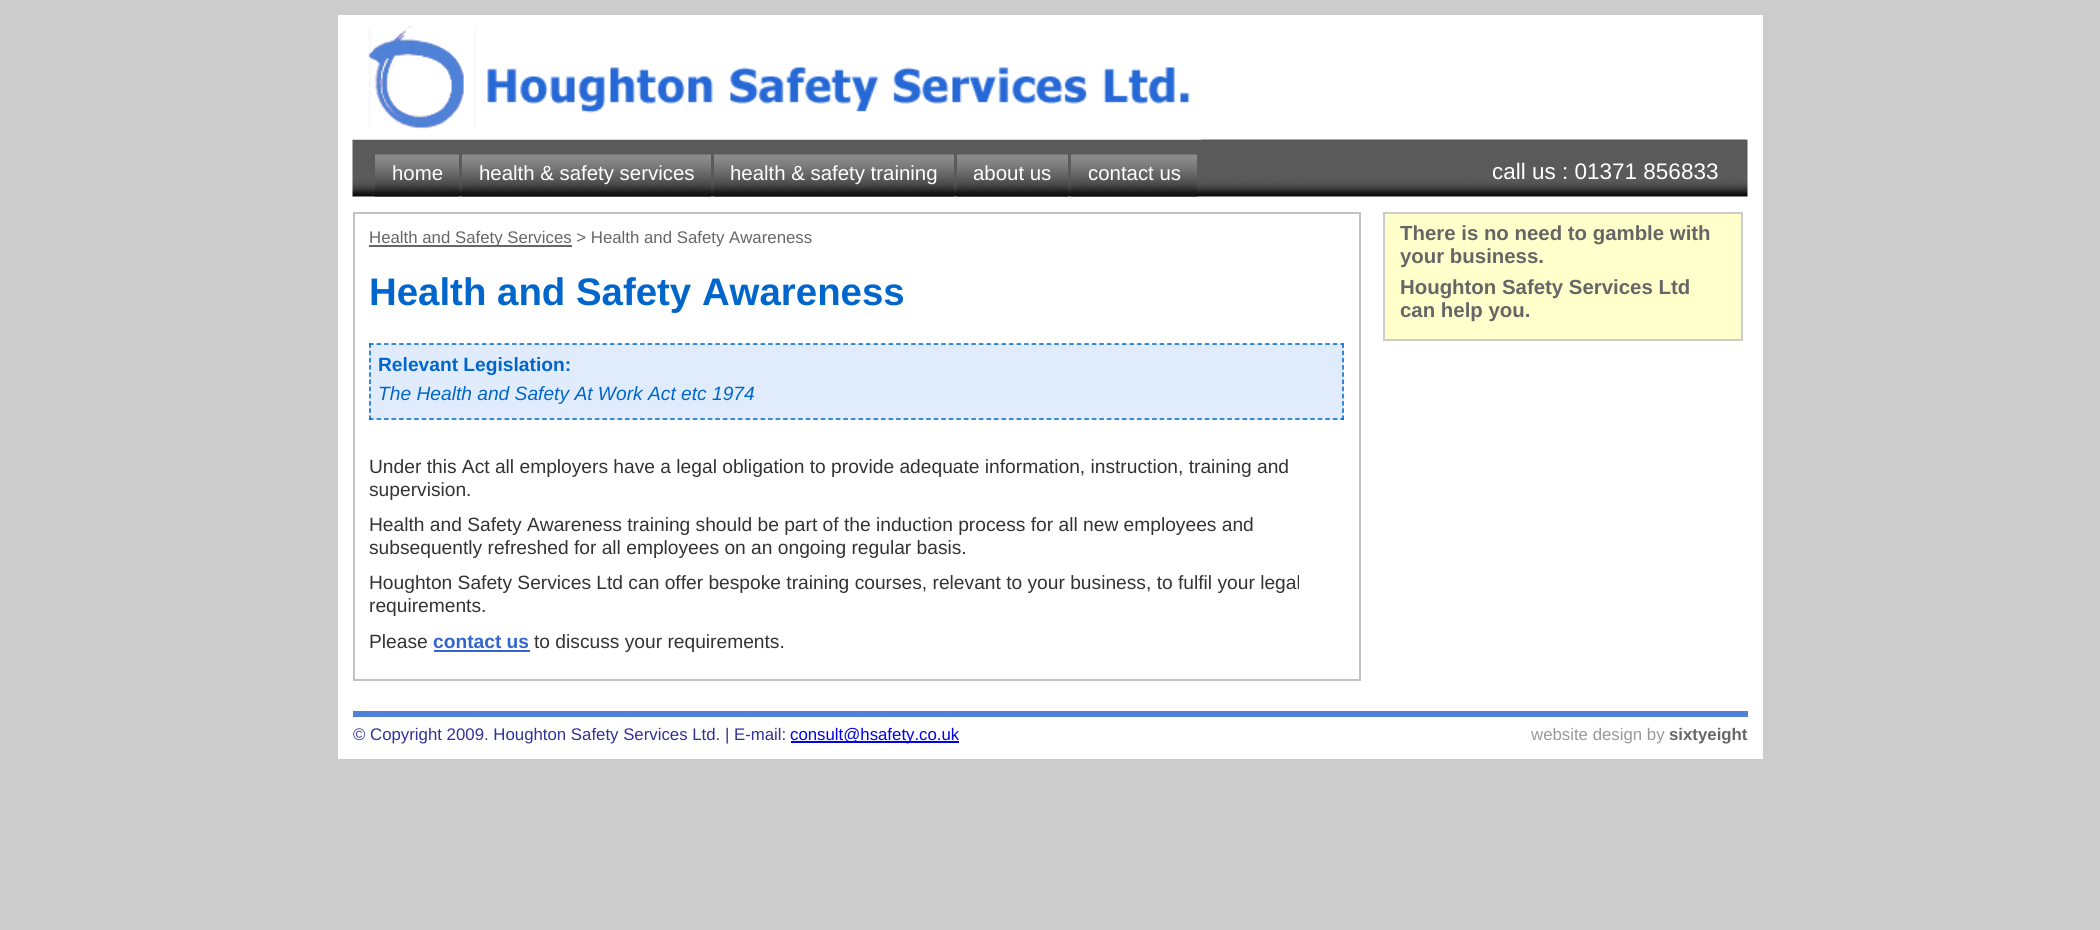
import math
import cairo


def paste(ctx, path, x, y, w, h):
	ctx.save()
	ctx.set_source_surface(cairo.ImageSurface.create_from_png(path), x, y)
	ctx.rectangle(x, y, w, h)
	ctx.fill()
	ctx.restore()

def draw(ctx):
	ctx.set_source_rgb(0.8, 0.8, 0.8)
	ctx.paint()
	ctx.set_source_rgb(1, 1, 1)
	ctx.rectangle(338, 15, 1425, 744)
	ctx.fill()
	paste(ctx, 'media/2.png', 352, 139, 1396, 58)
	paste(ctx, 'media/1.png', 352, 25, 850, 115)
	paste(ctx, 'media/3.png', 375, 154, 84, 43)
	ctx.select_font_face('Liberation Sans')
	ctx.set_font_size(20.4)
	ctx.move_to(392, 180)
	ctx.show_text('home')
	paste(ctx, 'media/4.png', 462, 154, 249, 43)
	ctx.move_to(479, 180)
	ctx.show_text('health & safety services')
	paste(ctx, 'media/5.png', 714, 154, 240, 43)
	ctx.move_to(730, 180)
	ctx.show_text('health & safety training')
	paste(ctx, 'media/6.png', 957, 154, 111, 43)
	ctx.move_to(973, 180)
	ctx.show_text('about us')
	paste(ctx, 'media/7.png', 1071, 154, 126, 43)
	ctx.move_to(1088, 180)
	ctx.show_text('contact us')
	ctx.set_font_size(22.5)
	ctx.move_to(1492, 179)
	ctx.show_text('call us : 01371 856833')
	ctx.rectangle(354, 213, 1006, 467)
	ctx.set_source_rgb(0.761, 0.761, 0.761)
	ctx.stroke()
	ctx.set_source_rgb(0.4, 0.4, 0.4)
	ctx.rectangle(369, 245, 203, 2)
	ctx.fill()
	ctx.set_font_size(16.8)
	ctx.move_to(369, 243)
	ctx.show_text('Health and Safety Services > Health and Safety Awareness')
	ctx.select_font_face('Liberation Sans', cairo.FONT_SLANT_NORMAL, cairo.FONT_WEIGHT_BOLD)
	ctx.set_font_size(38.4)
	ctx.set_source_rgb(0, 0.4, 0.8)
	ctx.move_to(369, 305)
	ctx.show_text('Health and Safety Awareness')
	ctx.set_source_rgb(0.878, 0.922, 0.984)
	ctx.rectangle(369, 344, 975, 76)
	ctx.fill()
	ctx.new_path()
	ctx.move_to(369, 344)
	ctx.line_to(1344, 344)
	ctx.set_source_rgb(0, 0.4, 0.8)
	ctx.set_line_width(1.5)
	ctx.set_dash([4.5, 3.03])
	ctx.stroke()
	ctx.new_path()
	ctx.move_to(1343, 343.5)
	ctx.line_to(1343, 420)
	ctx.set_dash([4.5, 2.7])
	ctx.stroke()
	ctx.new_path()
	ctx.move_to(369, 419)
	ctx.line_to(1344, 419)
	ctx.set_dash([4.5, 3.03])
	ctx.stroke()
	ctx.new_path()
	ctx.move_to(370, 343.5)
	ctx.line_to(370, 420)
	ctx.set_dash([4.5, 2.7])
	ctx.stroke()
	ctx.set_font_size(19.2)
	ctx.move_to(378, 371)
	ctx.show_text('Relevant Legislation:')
	ctx.select_font_face('Liberation Sans', cairo.FONT_SLANT_ITALIC)
	ctx.move_to(378, 400)
	ctx.show_text('The Health and Safety At Work Act etc 1974')
	ctx.select_font_face('Liberation Sans')
	ctx.set_source_rgb(0.2, 0.2, 0.2)
	for x, y, s in [
		(369, 473, 'Under this Act all employers have a legal obligation to provide adequate information, instruction, training and'),
		(369, 496, 'supervision.'),
		(369, 531, 'Health and Safety Awareness training should be part of the induction process for all new employees and'),
		(369, 554, 'subsequently refreshed for all employees on an ongoing regular basis.'),
		(369, 589, 'Houghton Safety Services Ltd can offer bespoke training courses, relevant to your business, to fulfil your legal'),
		(369, 612, 'requirements.'),
		(369, 648, 'Please'),
	]:
		ctx.move_to(x, y)
		ctx.show_text(s)
	ctx.select_font_face('Liberation Sans', cairo.FONT_SLANT_NORMAL, cairo.FONT_WEIGHT_BOLD)
	ctx.set_source_rgb(0.2, 0.4, 0.8)
	ctx.move_to(433, 648)
	ctx.show_text('contact us')
	ctx.rectangle(434, 650, 96, 2)
	ctx.fill()
	ctx.select_font_face('Liberation Sans')
	ctx.set_source_rgb(0.2, 0.2, 0.2)
	ctx.move_to(534, 648)
	ctx.show_text('to discuss your requirements.')
	ctx.set_source_rgb(1, 1, 0.8)
	ctx.rectangle(1384, 213, 358, 127)
	ctx.fill_preserve()
	ctx.set_source_rgb(0.8, 0.8, 0.8)
	ctx.set_line_width(2)
	ctx.set_dash([])
	ctx.stroke()
	ctx.select_font_face('Liberation Sans', cairo.FONT_SLANT_NORMAL, cairo.FONT_WEIGHT_BOLD)
	ctx.set_font_size(20.4)
	ctx.set_source_rgb(0.4, 0.4, 0.4)
	for x, y, s in [
		(1400, 240, 'There is no need to gamble with'),
		(1400, 263, 'your business.'),
		(1400, 294, 'Houghton Safety Services Ltd'),
		(1400, 317, 'can help you.'),
	]:
		ctx.move_to(x, y)
		ctx.show_text(s)
	ctx.set_source_rgb(0.31, 0.51, 0.843)
	ctx.rectangle(353, 711, 1395, 6)
	ctx.fill()
	ctx.select_font_face('Liberation Sans')
	ctx.set_font_size(16.8)
	ctx.set_source_rgb(0.192, 0.192, 0.6)
	ctx.move_to(353, 740)
	ctx.show_text('© Copyright 2009. Houghton Safety Services Ltd. | E-mail:')
	ctx.set_source_rgb(0, 0, 0.933)
	ctx.rectangle(791, 741, 168, 2)
	ctx.fill()
	ctx.move_to(790, 740)
	ctx.show_text('consult@hsafety.co.uk')
	ctx.set_source_rgb(0.6, 0.6, 0.6)
	ctx.move_to(1531, 740)
	ctx.show_text('website design by')
	ctx.select_font_face('Liberation Sans', cairo.FONT_SLANT_NORMAL, cairo.FONT_WEIGHT_BOLD)
	ctx.set_source_rgb(0.4, 0.4, 0.4)
	ctx.move_to(1669, 740)
	ctx.show_text('sixtyeight')


surface = cairo.ImageSurface(cairo.FORMAT_RGB24, 2100, 930)
ctx = cairo.Context(surface)
options = cairo.FontOptions()
options.set_hint_metrics(cairo.HINT_METRICS_OFF)
options.set_hint_style(cairo.HINT_STYLE_NONE)
ctx.set_font_options(options)
ctx.set_miter_limit(4)
draw(ctx)
surface.write_to_png('image.png')
